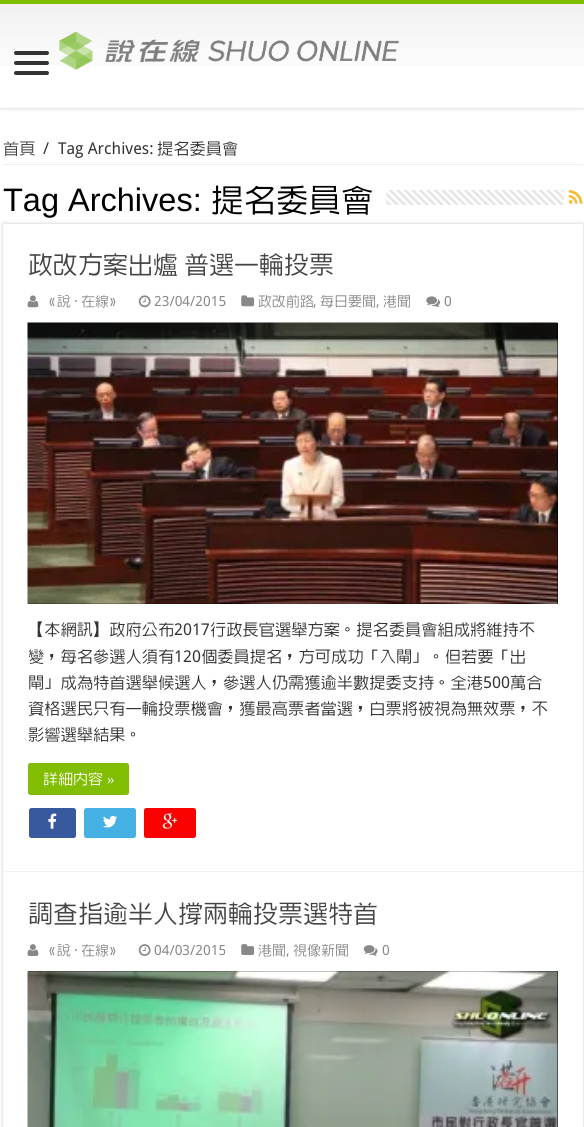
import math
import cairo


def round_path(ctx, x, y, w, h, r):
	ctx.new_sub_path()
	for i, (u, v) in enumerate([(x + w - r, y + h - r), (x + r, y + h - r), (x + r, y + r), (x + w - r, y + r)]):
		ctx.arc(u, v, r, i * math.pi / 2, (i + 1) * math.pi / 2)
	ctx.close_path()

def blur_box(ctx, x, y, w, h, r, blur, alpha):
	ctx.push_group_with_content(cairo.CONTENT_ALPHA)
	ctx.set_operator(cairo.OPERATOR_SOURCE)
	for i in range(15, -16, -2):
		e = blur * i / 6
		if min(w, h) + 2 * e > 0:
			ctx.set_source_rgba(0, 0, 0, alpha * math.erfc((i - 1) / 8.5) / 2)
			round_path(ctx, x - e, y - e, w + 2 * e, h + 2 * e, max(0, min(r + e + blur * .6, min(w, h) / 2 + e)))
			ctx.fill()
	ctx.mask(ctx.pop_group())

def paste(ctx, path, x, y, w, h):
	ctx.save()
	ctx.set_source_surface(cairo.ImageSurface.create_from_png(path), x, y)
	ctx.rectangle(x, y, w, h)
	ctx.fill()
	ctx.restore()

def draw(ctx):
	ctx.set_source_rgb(1, 1, 1)
	ctx.paint()
	ctx.set_source_rgb(0.792, 0.792, 0.792)
	blur_box(ctx, 0, 0, 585, 108, 0, 2, 1)
	ctx.set_source_rgb(1, 1, 1)
	ctx.rectangle(0, 65, 584, 43)
	ctx.fill()
	paste(ctx, 'media/1.png', 0, 4, 584, 61)
	ctx.set_source_rgb(0.506, 0.741, 0)
	ctx.rectangle(0, 0, 584, 4)
	ctx.fill()
	ctx.set_source_rgb(0.2, 0.2, 0.2)
	round_path(ctx, 14, 51, 35, 4, 2)
	ctx.fill()
	round_path(ctx, 14, 61, 35, 4, 2)
	ctx.fill()
	round_path(ctx, 14, 71, 35, 4, 2)
	ctx.fill()
	paste(ctx, 'media/2.png', 59, 31, 341, 39)
	ctx.set_source_rgb(0.933, 0.933, 0.933)
	ctx.rectangle(3, 164, 580, 1)
	ctx.fill()
	ctx.select_font_face('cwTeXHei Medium')
	ctx.set_font_size(16.25)
	ctx.set_source_rgb(0.267, 0.267, 0.267)
	ctx.move_to(3, 154)
	ctx.show_text('首頁')
	ctx.select_font_face('Droid Sans')
	ctx.set_source_rgb(0.2, 0.2, 0.2)
	ctx.move_to(43, 154)
	ctx.show_text('/')
	ctx.move_to(58, 154)
	ctx.show_text('Tag Archives:')
	ctx.select_font_face('cwTeXHei Medium')
	ctx.move_to(157, 154)
	ctx.show_text('提名委員會')
	ctx.set_source_rgb(0.792, 0.792, 0.792)
	blur_box(ctx, 3, 224, 580, 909, 0, 2, 1)
	ctx.select_font_face('Liberation Sans')
	ctx.set_font_size(32.5)
	ctx.set_source_rgb(0, 0, 0)
	ctx.move_to(3, 211)
	ctx.show_text('Tag Archives:')
	ctx.select_font_face('cwTeXHei Medium')
	ctx.move_to(211, 211)
	ctx.show_text('提名委員會')
	paste(ctx, 'media/3.png', 386, 190, 178, 15)
	paste(ctx, 'media/4.png', 568, 190, 15, 14)
	ctx.set_source_rgb(1, 1, 1)
	ctx.rectangle(3, 224, 580, 903)
	ctx.fill()
	ctx.set_source_rgb(0.949, 0.949, 0.949)
	ctx.rectangle(3, 871, 580, 1)
	ctx.fill()
	ctx.set_font_size(25)
	ctx.set_source_rgb(0.267, 0.267, 0.267)
	ctx.move_to(28, 273)
	ctx.show_text('政改方案出爐')
	ctx.move_to(184, 273)
	ctx.show_text('普選一輪投票')
	paste(ctx, 'media/5.png', 27, 295, 12, 13)
	ctx.set_font_size(14)
	ctx.set_source_rgb(0.533, 0.533, 0.533)
	ctx.move_to(43, 306)
	ctx.show_text('《說')
	ctx.select_font_face('Droid Sans')
	ctx.move_to(74, 306)
	ctx.show_text('·')
	ctx.select_font_face('cwTeXHei Medium')
	ctx.move_to(81, 306)
	ctx.show_text('在線》')
	paste(ctx, 'media/6.png', 138, 295, 13, 13)
	ctx.select_font_face('Droid Sans')
	ctx.move_to(154, 306)
	ctx.show_text('23/04/2015')
	paste(ctx, 'media/7.png', 241, 295, 14, 12)
	ctx.select_font_face('cwTeXHei Medium')
	ctx.move_to(258, 306)
	ctx.show_text('政改前路')
	ctx.select_font_face('Droid Sans')
	ctx.move_to(313, 306)
	ctx.show_text(',')
	ctx.select_font_face('cwTeXHei Medium')
	ctx.move_to(320, 306)
	ctx.show_text('每日要聞')
	ctx.select_font_face('Droid Sans')
	ctx.move_to(376, 306)
	ctx.show_text(',')
	ctx.select_font_face('cwTeXHei Medium')
	ctx.move_to(383, 306)
	ctx.show_text('港聞')
	paste(ctx, 'media/8.png', 426, 296, 14, 12)
	ctx.select_font_face('Droid Sans')
	ctx.move_to(444, 306)
	ctx.show_text('0')
	ctx.set_source_rgb(0, 0, 0)
	ctx.rectangle(28, 323, 530, 281)
	ctx.fill()
	paste(ctx, 'media/9.png', 27, 322, 531, 282)
	ctx.select_font_face('cwTeXHei Medium')
	ctx.set_font_size(16.25)
	ctx.set_source_rgb(0.2, 0.2, 0.2)
	ctx.move_to(28, 635)
	ctx.show_text('【本網訊】政府公布')
	ctx.select_font_face('Droid Sans')
	ctx.move_to(174, 635)
	ctx.show_text('2017')
	ctx.select_font_face('cwTeXHei Medium')
	ctx.move_to(210, 635)
	ctx.show_text('行政長官選舉方案。提名委員會組成將維持不')
	ctx.move_to(28, 662)
	ctx.show_text('變，每名參選人須有')
	ctx.select_font_face('Droid Sans')
	ctx.move_to(174, 662)
	ctx.show_text('120')
	ctx.select_font_face('cwTeXHei Medium')
	ctx.move_to(201, 662)
	ctx.show_text('個委員提名，方可成功「入閘」。但若要「出')
	ctx.move_to(28, 688)
	ctx.show_text('閘」成為特首選舉候選人，參選人仍需獲逾半數提委支持。全港')
	ctx.select_font_face('Droid Sans')
	ctx.move_to(483, 688)
	ctx.show_text('500')
	ctx.select_font_face('cwTeXHei Medium')
	for x, y, s in [
		(510, 688, '萬合'),
		(28, 714, '資格選民只有一輪投票機會，獲最高票者當選，白票將被視為無效票，不'),
		(28, 740, '影響選舉結果。'),
	]:
		ctx.move_to(x, y)
		ctx.show_text(s)
	ctx.set_source_rgb(0.506, 0.741, 0)
	round_path(ctx, 28, 763, 101, 32, 2.5)
	ctx.fill()
	ctx.set_font_size(15)
	ctx.set_source_rgb(1, 1, 1)
	ctx.move_to(43, 784)
	ctx.show_text('詳細內容')
	ctx.select_font_face('Liberation Serif')
	ctx.move_to(107, 784)
	ctx.show_text('»')
	ctx.set_source_rgb(0.224, 0.349, 0.624)
	round_path(ctx, 29, 808, 47, 30, 2.5)
	ctx.fill()
	paste(ctx, 'media/10.png', 48, 813, 9, 16)
	ctx.set_source_rgb(0.271, 0.69, 0.89)
	round_path(ctx, 84, 808, 52, 30, 2.5)
	ctx.fill()
	paste(ctx, 'media/11.png', 103, 815, 14, 13)
	ctx.set_source_rgb(0.98, 0.004, 0.004)
	round_path(ctx, 144, 808, 52, 30, 2.5)
	ctx.fill()
	paste(ctx, 'media/12.png', 162, 813, 16, 16)
	ctx.select_font_face('cwTeXHei Medium')
	ctx.set_font_size(25)
	ctx.set_source_rgb(0.267, 0.267, 0.267)
	ctx.move_to(28, 922)
	ctx.show_text('調查指逾半人撐兩輪投票選特首')
	paste(ctx, 'media/13.png', 27, 944, 12, 12)
	ctx.set_font_size(14)
	ctx.set_source_rgb(0.533, 0.533, 0.533)
	ctx.move_to(43, 955)
	ctx.show_text('《說')
	ctx.select_font_face('Droid Sans')
	ctx.move_to(74, 955)
	ctx.show_text('·')
	ctx.select_font_face('cwTeXHei Medium')
	ctx.move_to(81, 955)
	ctx.show_text('在線》')
	paste(ctx, 'media/14.png', 138, 944, 13, 12)
	ctx.select_font_face('Droid Sans')
	ctx.move_to(154, 955)
	ctx.show_text('04/03/2015')
	paste(ctx, 'media/15.png', 241, 944, 14, 11)
	ctx.select_font_face('cwTeXHei Medium')
	ctx.move_to(258, 955)
	ctx.show_text('港聞')
	ctx.select_font_face('Droid Sans')
	ctx.move_to(286, 955)
	ctx.show_text(',')
	ctx.select_font_face('cwTeXHei Medium')
	ctx.move_to(293, 955)
	ctx.show_text('視像新聞')
	paste(ctx, 'media/16.png', 363, 945, 15, 11)
	ctx.select_font_face('Droid Sans')
	ctx.move_to(382, 955)
	ctx.show_text('0')
	ctx.set_source_rgb(0, 0, 0)
	ctx.rectangle(28, 971, 530, 156)
	ctx.fill()
	paste(ctx, 'media/17.png', 27, 971, 531, 156)


surface = cairo.ImageSurface(cairo.FORMAT_RGB24, 584, 1127)
ctx = cairo.Context(surface)
options = cairo.FontOptions()
options.set_hint_metrics(cairo.HINT_METRICS_OFF)
options.set_hint_style(cairo.HINT_STYLE_NONE)
ctx.set_font_options(options)
ctx.set_miter_limit(4)
draw(ctx)
surface.write_to_png('image.png')
